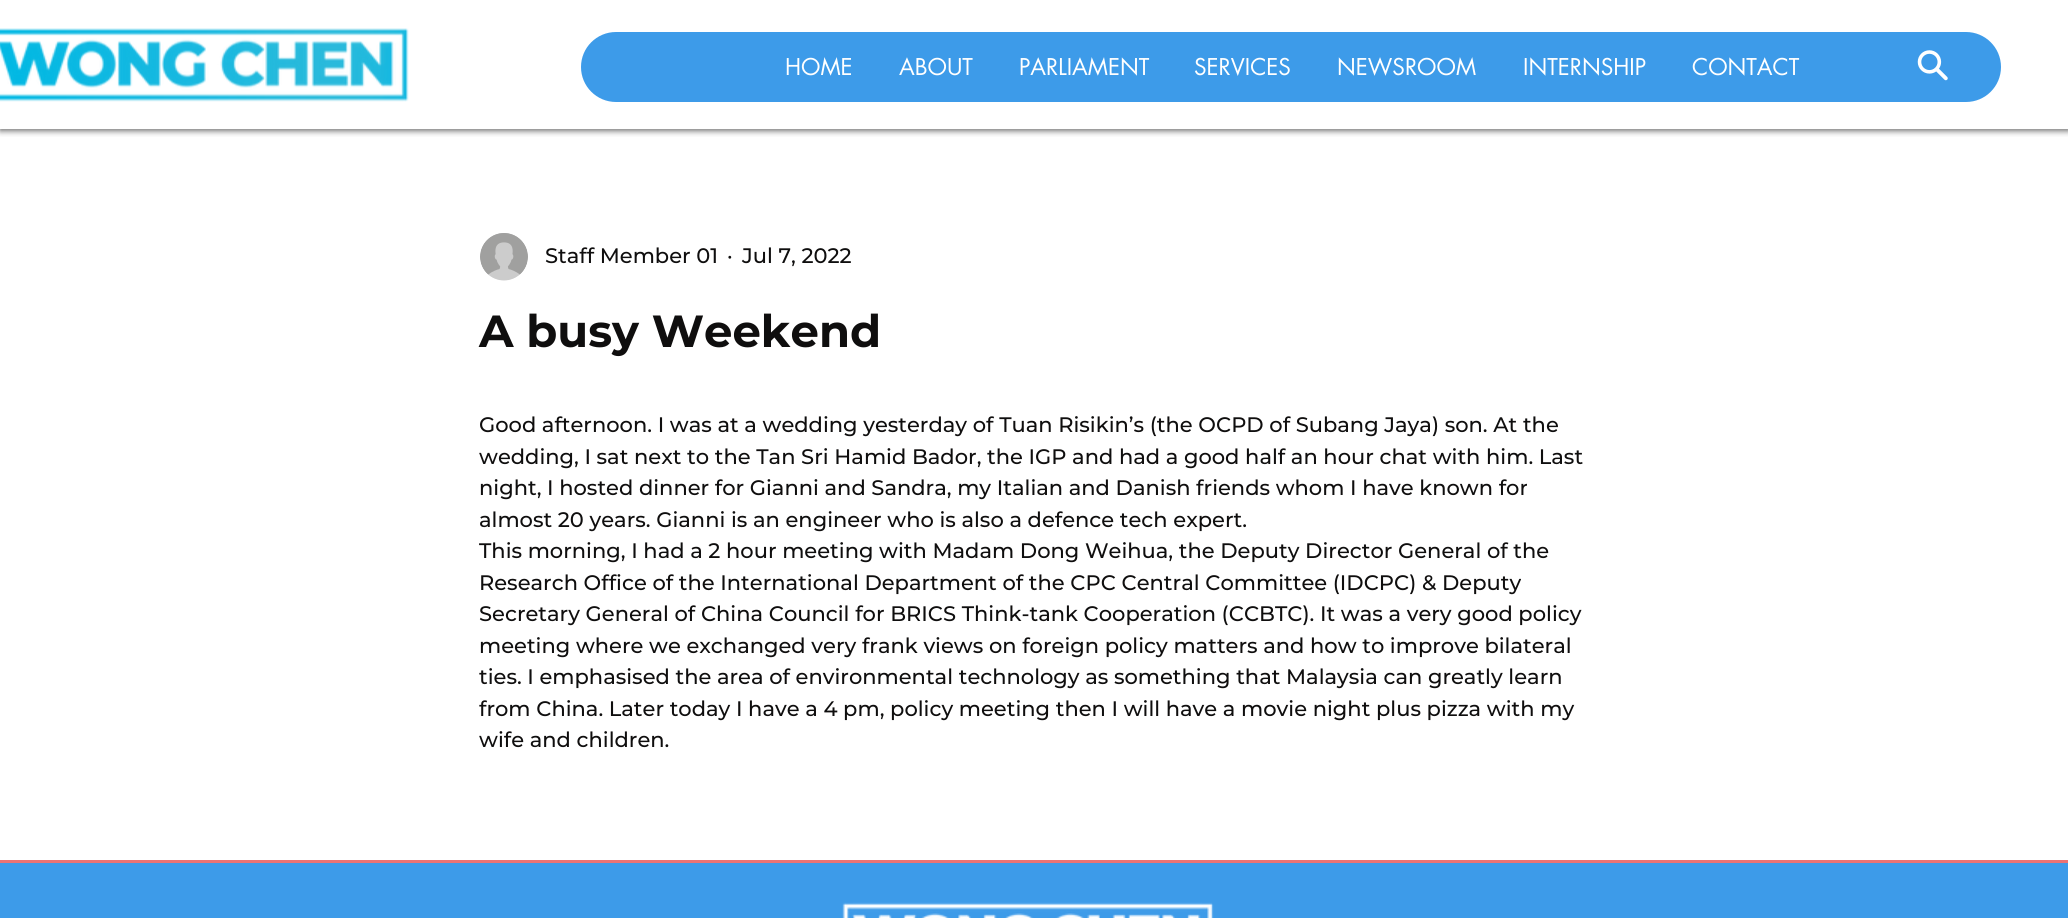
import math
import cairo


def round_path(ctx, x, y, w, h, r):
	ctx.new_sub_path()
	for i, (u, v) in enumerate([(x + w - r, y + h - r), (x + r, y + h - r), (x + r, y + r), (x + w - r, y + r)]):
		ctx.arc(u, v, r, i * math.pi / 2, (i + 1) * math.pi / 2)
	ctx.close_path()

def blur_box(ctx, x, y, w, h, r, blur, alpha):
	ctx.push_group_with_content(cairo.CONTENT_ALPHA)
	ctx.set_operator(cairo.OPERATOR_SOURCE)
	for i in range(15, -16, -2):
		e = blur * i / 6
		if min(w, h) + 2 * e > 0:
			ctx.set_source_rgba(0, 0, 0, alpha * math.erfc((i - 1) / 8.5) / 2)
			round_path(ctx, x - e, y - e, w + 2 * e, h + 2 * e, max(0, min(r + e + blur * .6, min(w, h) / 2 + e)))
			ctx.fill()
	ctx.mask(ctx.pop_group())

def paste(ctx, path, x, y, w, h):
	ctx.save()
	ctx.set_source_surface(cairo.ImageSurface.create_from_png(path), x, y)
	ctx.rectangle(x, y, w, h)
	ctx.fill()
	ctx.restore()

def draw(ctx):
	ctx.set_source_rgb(1, 1, 1)
	ctx.paint()
	ctx.save()
	ctx.rectangle(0, 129, 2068, 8)
	ctx.clip()
	ctx.set_source_rgb(0.259, 0.259, 0.259)
	blur_box(ctx, 0, 2, 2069, 129, 0, 3, 0.75)
	ctx.restore()
	paste(ctx, 'media/1.png', 0, 28, 409, 74)
	ctx.set_source_rgb(0.239, 0.608, 0.914)
	round_path(ctx, 581, 32, 1420, 70, 35)
	ctx.fill()
	ctx.select_font_face('futura')
	ctx.set_font_size(22.5)
	ctx.set_source_rgb(1, 1, 1)
	for x, y, s in [
		(785, 75, 'HOME'),
		(899, 75, 'ABOUT'),
		(1019, 75, 'PARLIAMENT'),
		(1194, 75, 'SERVICES'),
		(1337, 75, 'NEWSROOM'),
		(1523, 75, 'INTERNSHIP'),
		(1692, 75, 'CONTACT'),
	]:
		ctx.move_to(x, y)
		ctx.show_text(s)
	paste(ctx, 'media/2.png', 1917, 50, 31, 31)
	paste(ctx, 'media/3.png', 480, 233, 48, 48)
	ctx.select_font_face('Montserrat Medium')
	ctx.set_font_size(21)
	ctx.set_source_rgb(0.059, 0.055, 0.055)
	for x, y, s in [
		(545, 263, 'Staff Member 01'),
		(727, 263, '·'),
		(742, 263, 'Jul 7, 2022'),
	]:
		ctx.move_to(x, y)
		ctx.show_text(s)
	ctx.select_font_face('Montserrat', cairo.FONT_SLANT_NORMAL, cairo.FONT_WEIGHT_BOLD)
	ctx.set_font_size(45)
	ctx.move_to(479, 347)
	ctx.show_text('A busy Weekend')
	ctx.select_font_face('Montserrat Medium')
	ctx.set_font_size(21)
	for x, y, s in [
		(479, 432, 'Good afternoon. I was at a wedding yesterday of Tuan Risikin’s (the OCPD of Subang Jaya) son. At the'),
		(479, 464, 'wedding, I sat next to the Tan Sri Hamid Bador, the IGP and had a good half an hour chat with him. Last'),
		(479, 495, 'night, I hosted dinner for Gianni and Sandra, my Italian and Danish friends whom I have known for'),
		(479, 527, 'almost 20 years. Gianni is an engineer who is also a defence tech expert.'),
		(479, 558, 'This morning, I had a 2 hour meeting with Madam Dong Weihua, the Deputy Director General of the'),
		(479, 590, 'Research Office of the International Department of the CPC Central Committee (IDCPC) & Deputy'),
		(479, 621, 'Secretary General of China Council for BRICS Think-tank Cooperation (CCBTC). It was a very good policy'),
		(479, 653, 'meeting where we exchanged very frank views on foreign policy matters and how to improve bilateral'),
		(479, 684, 'ties. I emphasised the area of environmental technology as something that Malaysia can greatly learn'),
		(479, 716, 'from China. Later today I have a 4 pm, policy meeting then I will have a movie night plus pizza with my'),
		(479, 747, 'wife and children.'),
	]:
		ctx.move_to(x, y)
		ctx.show_text(s)
	ctx.set_source_rgb(0.925, 0.451, 0.455)
	ctx.rectangle(0, 860, 2068, 3)
	ctx.fill()
	ctx.set_source_rgb(0.239, 0.608, 0.914)
	ctx.rectangle(0, 863, 2068, 55)
	ctx.fill()
	paste(ctx, 'media/4.png', 842, 902, 372, 16)


surface = cairo.ImageSurface(cairo.FORMAT_RGB24, 2068, 918)
ctx = cairo.Context(surface)
options = cairo.FontOptions()
options.set_hint_metrics(cairo.HINT_METRICS_OFF)
options.set_hint_style(cairo.HINT_STYLE_NONE)
ctx.set_font_options(options)
ctx.set_miter_limit(4)
draw(ctx)
surface.write_to_png('image.png')
